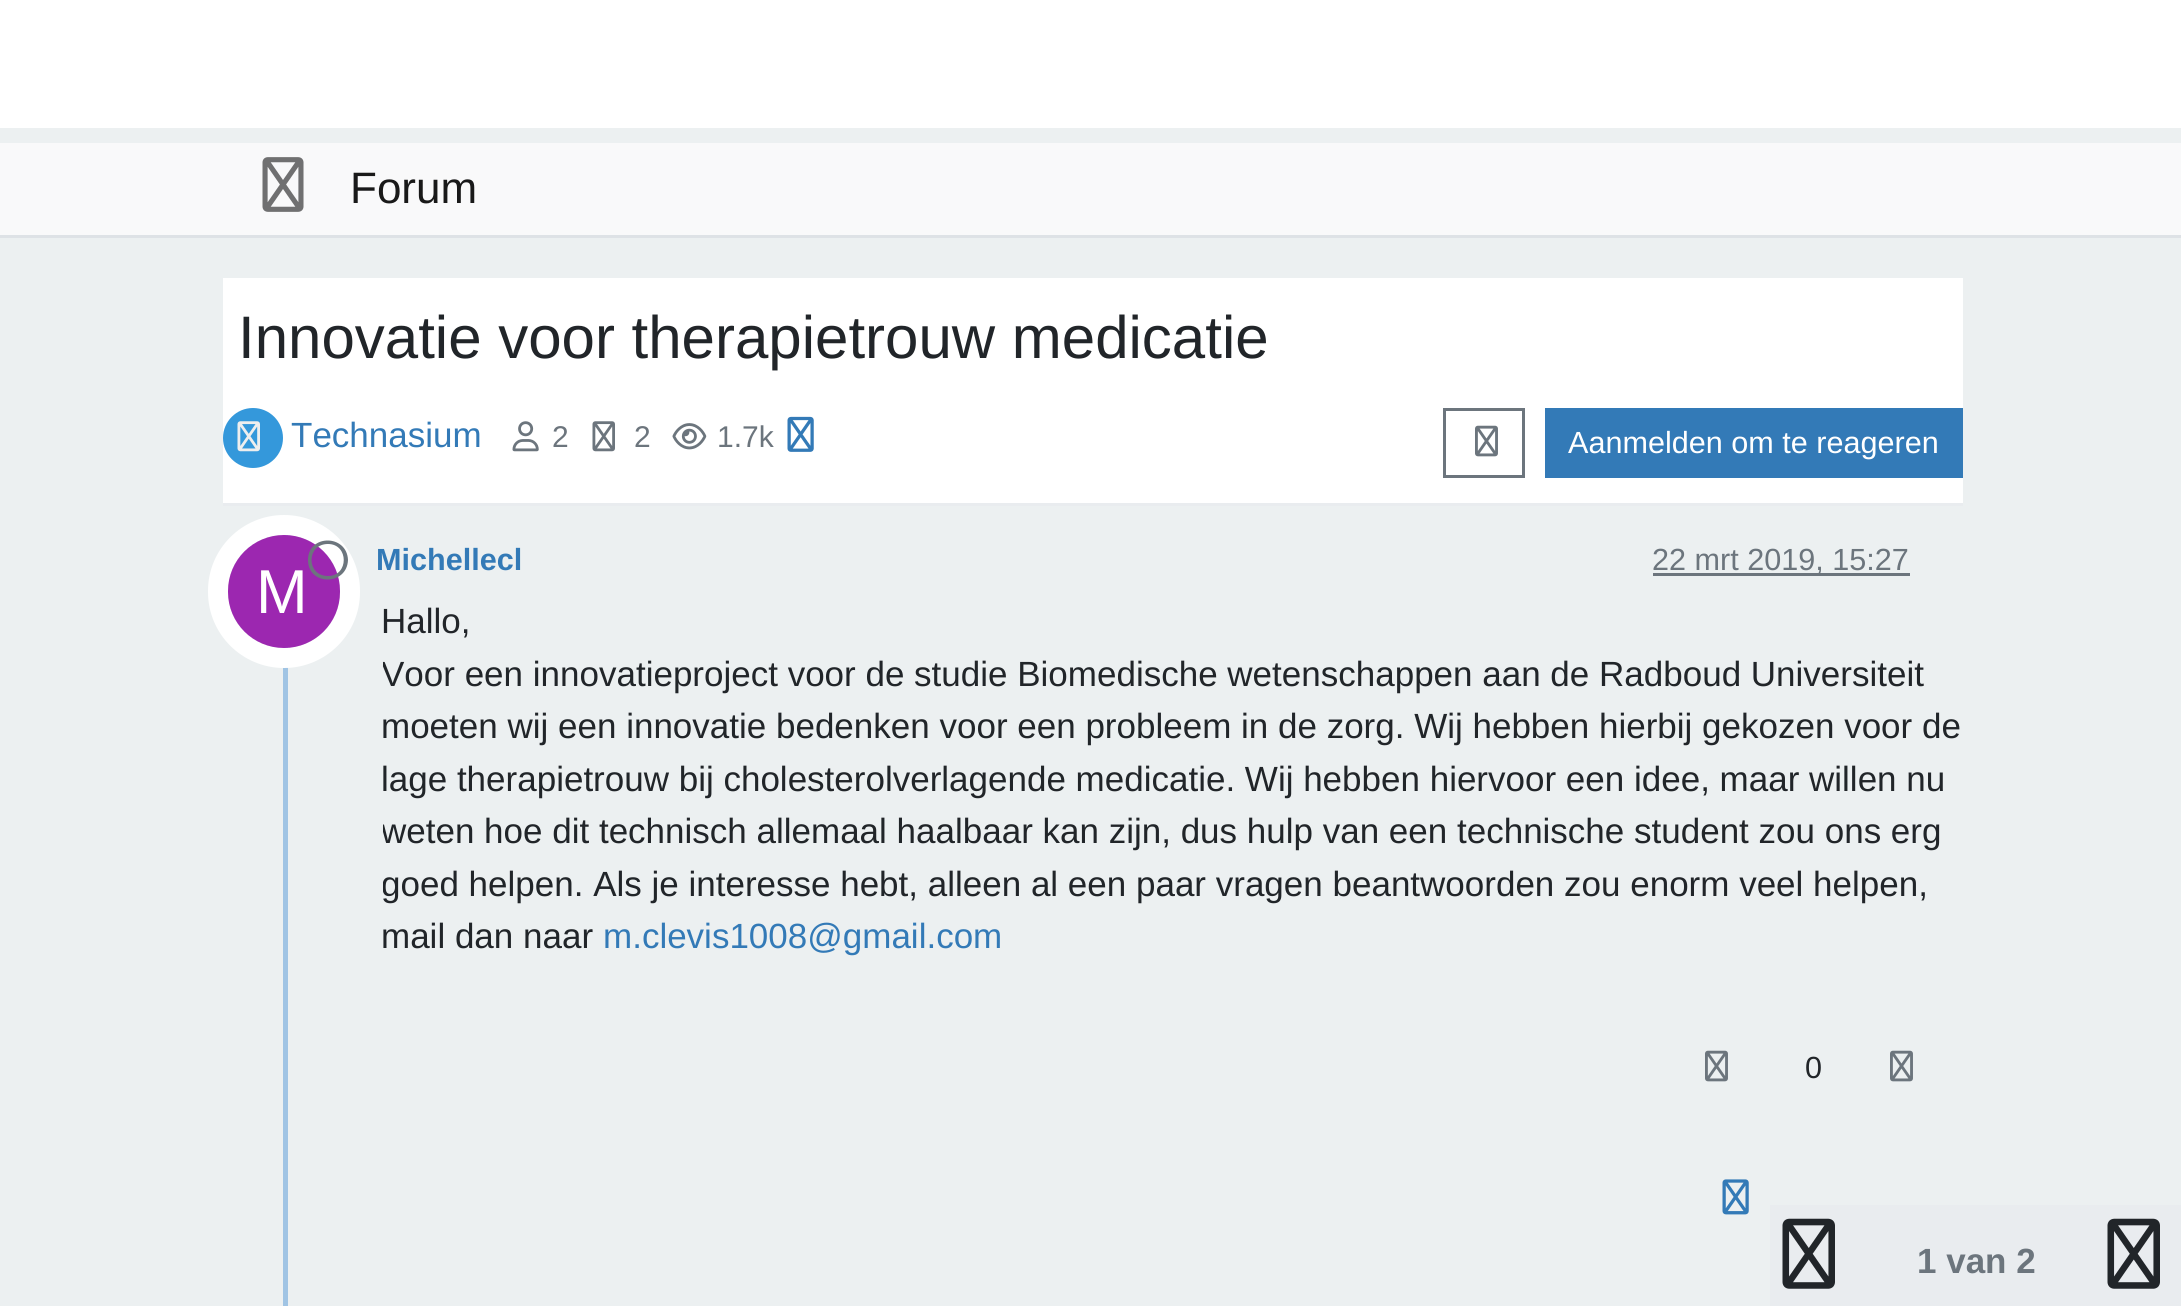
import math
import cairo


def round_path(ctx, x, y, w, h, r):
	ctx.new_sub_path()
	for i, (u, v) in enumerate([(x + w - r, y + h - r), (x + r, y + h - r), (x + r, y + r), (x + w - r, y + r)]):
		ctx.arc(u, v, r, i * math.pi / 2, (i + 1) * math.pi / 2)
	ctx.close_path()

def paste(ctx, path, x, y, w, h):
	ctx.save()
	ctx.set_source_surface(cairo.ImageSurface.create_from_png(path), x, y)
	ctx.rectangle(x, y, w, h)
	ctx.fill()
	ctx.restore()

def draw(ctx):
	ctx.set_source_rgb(0.925, 0.941, 0.945)
	ctx.paint()
	ctx.set_source_rgb(1, 1, 1)
	ctx.rectangle(0, 0, 2181, 128)
	ctx.fill()
	ctx.set_source_rgb(0.973, 0.976, 0.98)
	ctx.rectangle(0, 143, 2181, 92)
	ctx.fill()
	ctx.set_source_rgb(0.871, 0.886, 0.902)
	ctx.rectangle(0, 235, 2181, 3)
	ctx.fill()
	paste(ctx, 'media/1.png', 262, 157, 42, 55)
	ctx.select_font_face('Liberation Sans')
	ctx.set_font_size(44)
	ctx.set_source_rgb(0.098, 0.098, 0.098)
	ctx.move_to(350, 203)
	ctx.show_text('Forum')
	ctx.set_source_rgb(1, 1, 1)
	ctx.rectangle(223, 278, 1740, 225)
	ctx.fill()
	ctx.set_font_size(60)
	ctx.set_source_rgb(0.129, 0.145, 0.161)
	ctx.move_to(238, 358)
	ctx.show_text('Innovatie voor therapietrouw medicatie')
	ctx.set_source_rgb(0.914, 0.925, 0.937)
	ctx.rectangle(223, 503, 1740, 3)
	ctx.fill()
	ctx.set_source_rgb(0.204, 0.596, 0.859)
	ctx.arc(253, 438, 30, 0, 2 * math.pi)
	ctx.fill()
	paste(ctx, 'media/2.png', 237, 421, 23, 31)
	ctx.set_font_size(35)
	ctx.set_source_rgb(0.2, 0.478, 0.718)
	ctx.move_to(291, 447)
	ctx.show_text('Technasium')
	paste(ctx, 'media/3.png', 512, 421, 27, 31)
	ctx.set_font_size(30)
	ctx.set_source_rgb(0.424, 0.459, 0.49)
	ctx.move_to(552, 447)
	ctx.show_text('2')
	paste(ctx, 'media/4.png', 592, 421, 23, 31)
	ctx.move_to(634, 447)
	ctx.show_text('2')
	paste(ctx, 'media/5.png', 672, 423, 35, 27)
	ctx.move_to(717, 447)
	ctx.show_text('1.7k')
	paste(ctx, 'media/6.png', 787, 416, 27, 36)
	ctx.rectangle(1444.5, 409.5, 79, 67)
	ctx.set_line_width(3)
	ctx.stroke()
	paste(ctx, 'media/7.png', 1475, 425, 23, 32)
	ctx.set_source_rgb(0.2, 0.478, 0.718)
	ctx.rectangle(1545, 408, 418, 70)
	ctx.fill()
	ctx.set_font_size(30.6)
	ctx.set_source_rgb(1, 1, 1)
	ctx.move_to(1568, 453)
	ctx.show_text('Aanmelden om te reageren')
	ctx.set_source_rgb(0.627, 0.769, 0.894)
	ctx.rectangle(283, 530, 5, 776)
	ctx.fill()
	ctx.select_font_face('Liberation Sans', cairo.FONT_SLANT_NORMAL, cairo.FONT_WEIGHT_BOLD)
	ctx.set_source_rgb(0.2, 0.478, 0.718)
	ctx.move_to(376, 570)
	ctx.show_text('Michellecl')
	ctx.set_source_rgb(0.424, 0.459, 0.49)
	ctx.rectangle(1653, 573, 257, 3)
	ctx.fill()
	ctx.select_font_face('Liberation Sans')
	ctx.move_to(1652, 570)
	ctx.show_text('22 mrt 2019, 15:27')
	round_path(ctx, 218, 525, 132, 133, 66)
	ctx.set_source_rgb(1, 1, 1)
	ctx.set_line_width(20)
	ctx.stroke()
	ctx.set_source_rgb(0.612, 0.153, 0.69)
	round_path(ctx, 228, 535, 112, 113, 56)
	ctx.fill()
	ctx.set_source_rgb(0.424, 0.459, 0.49)
	ctx.new_path()
	ctx.move_to(348, 560)
	ctx.curve_to(347, 586, 308, 586, 308, 560)
	ctx.curve_to(308, 534, 347, 534, 348, 560)
	ctx.close_path()
	ctx.move_to(328, 544)
	ctx.curve_to(306, 544, 306, 576, 328, 576)
	ctx.curve_to(349, 576, 349, 544, 328, 544)
	ctx.close_path()
	ctx.fill()
	ctx.set_font_size(62)
	ctx.set_source_rgb(1, 1, 1)
	ctx.move_to(256, 613)
	ctx.show_text('M')
	ctx.set_font_size(35)
	ctx.set_source_rgb(0.129, 0.145, 0.161)
	ctx.move_to(381, 633)
	ctx.show_text('Hallo,')
	ctx.save()
	ctx.rectangle(383, 595, 1580, 410)
	ctx.clip()
	ctx.move_to(381, 686)
	ctx.show_text('Voor een innovatieproject voor de studie Biomedische wetenschappen aan de Radboud Universiteit')
	ctx.restore()
	ctx.move_to(381, 738)
	ctx.show_text('moeten wij een innovatie bedenken voor een probleem in de zorg. Wij hebben hierbij gekozen voor de')
	ctx.move_to(381, 791)
	ctx.show_text('lage therapietrouw bij cholesterolverlagende medicatie. Wij hebben hiervoor een idee, maar willen nu')
	ctx.save()
	ctx.rectangle(383, 595, 1580, 410)
	ctx.clip()
	ctx.move_to(381, 843)
	ctx.show_text('weten hoe dit technisch allemaal haalbaar kan zijn, dus hulp van een technische student zou ons erg')
	ctx.move_to(381, 896)
	ctx.show_text('goed helpen. Als je interesse hebt, alleen al een paar vragen beantwoorden zou enorm veel helpen,')
	ctx.restore()
	ctx.move_to(381, 948)
	ctx.show_text('mail dan naar')
	ctx.set_source_rgb(0.2, 0.478, 0.718)
	ctx.move_to(603, 948)
	ctx.show_text('m.clevis1008@gmail.com')
	paste(ctx, 'media/8.png', 1705, 1050, 23, 32)
	ctx.set_font_size(30.6)
	ctx.set_source_rgb(0.129, 0.145, 0.161)
	ctx.move_to(1805, 1078)
	ctx.show_text('0')
	paste(ctx, 'media/8.png', 1890, 1050, 23, 32)
	paste(ctx, 'media/9.png', 1722, 1179, 27, 36)
	ctx.set_source_rgb(0.914, 0.925, 0.937)
	ctx.rectangle(1770, 1205, 411, 101)
	ctx.fill()
	paste(ctx, 'media/10.png', 1782, 1218, 53, 71)
	ctx.select_font_face('Liberation Sans', cairo.FONT_SLANT_NORMAL, cairo.FONT_WEIGHT_BOLD)
	ctx.set_font_size(35)
	ctx.set_source_rgb(0.424, 0.459, 0.49)
	ctx.move_to(1917, 1273)
	ctx.show_text('1 van 2')
	paste(ctx, 'media/10.png', 2107, 1218, 53, 71)


surface = cairo.ImageSurface(cairo.FORMAT_RGB24, 2181, 1306)
ctx = cairo.Context(surface)
options = cairo.FontOptions()
options.set_hint_metrics(cairo.HINT_METRICS_OFF)
options.set_hint_style(cairo.HINT_STYLE_NONE)
ctx.set_font_options(options)
ctx.set_miter_limit(4)
draw(ctx)
surface.write_to_png('image.png')
